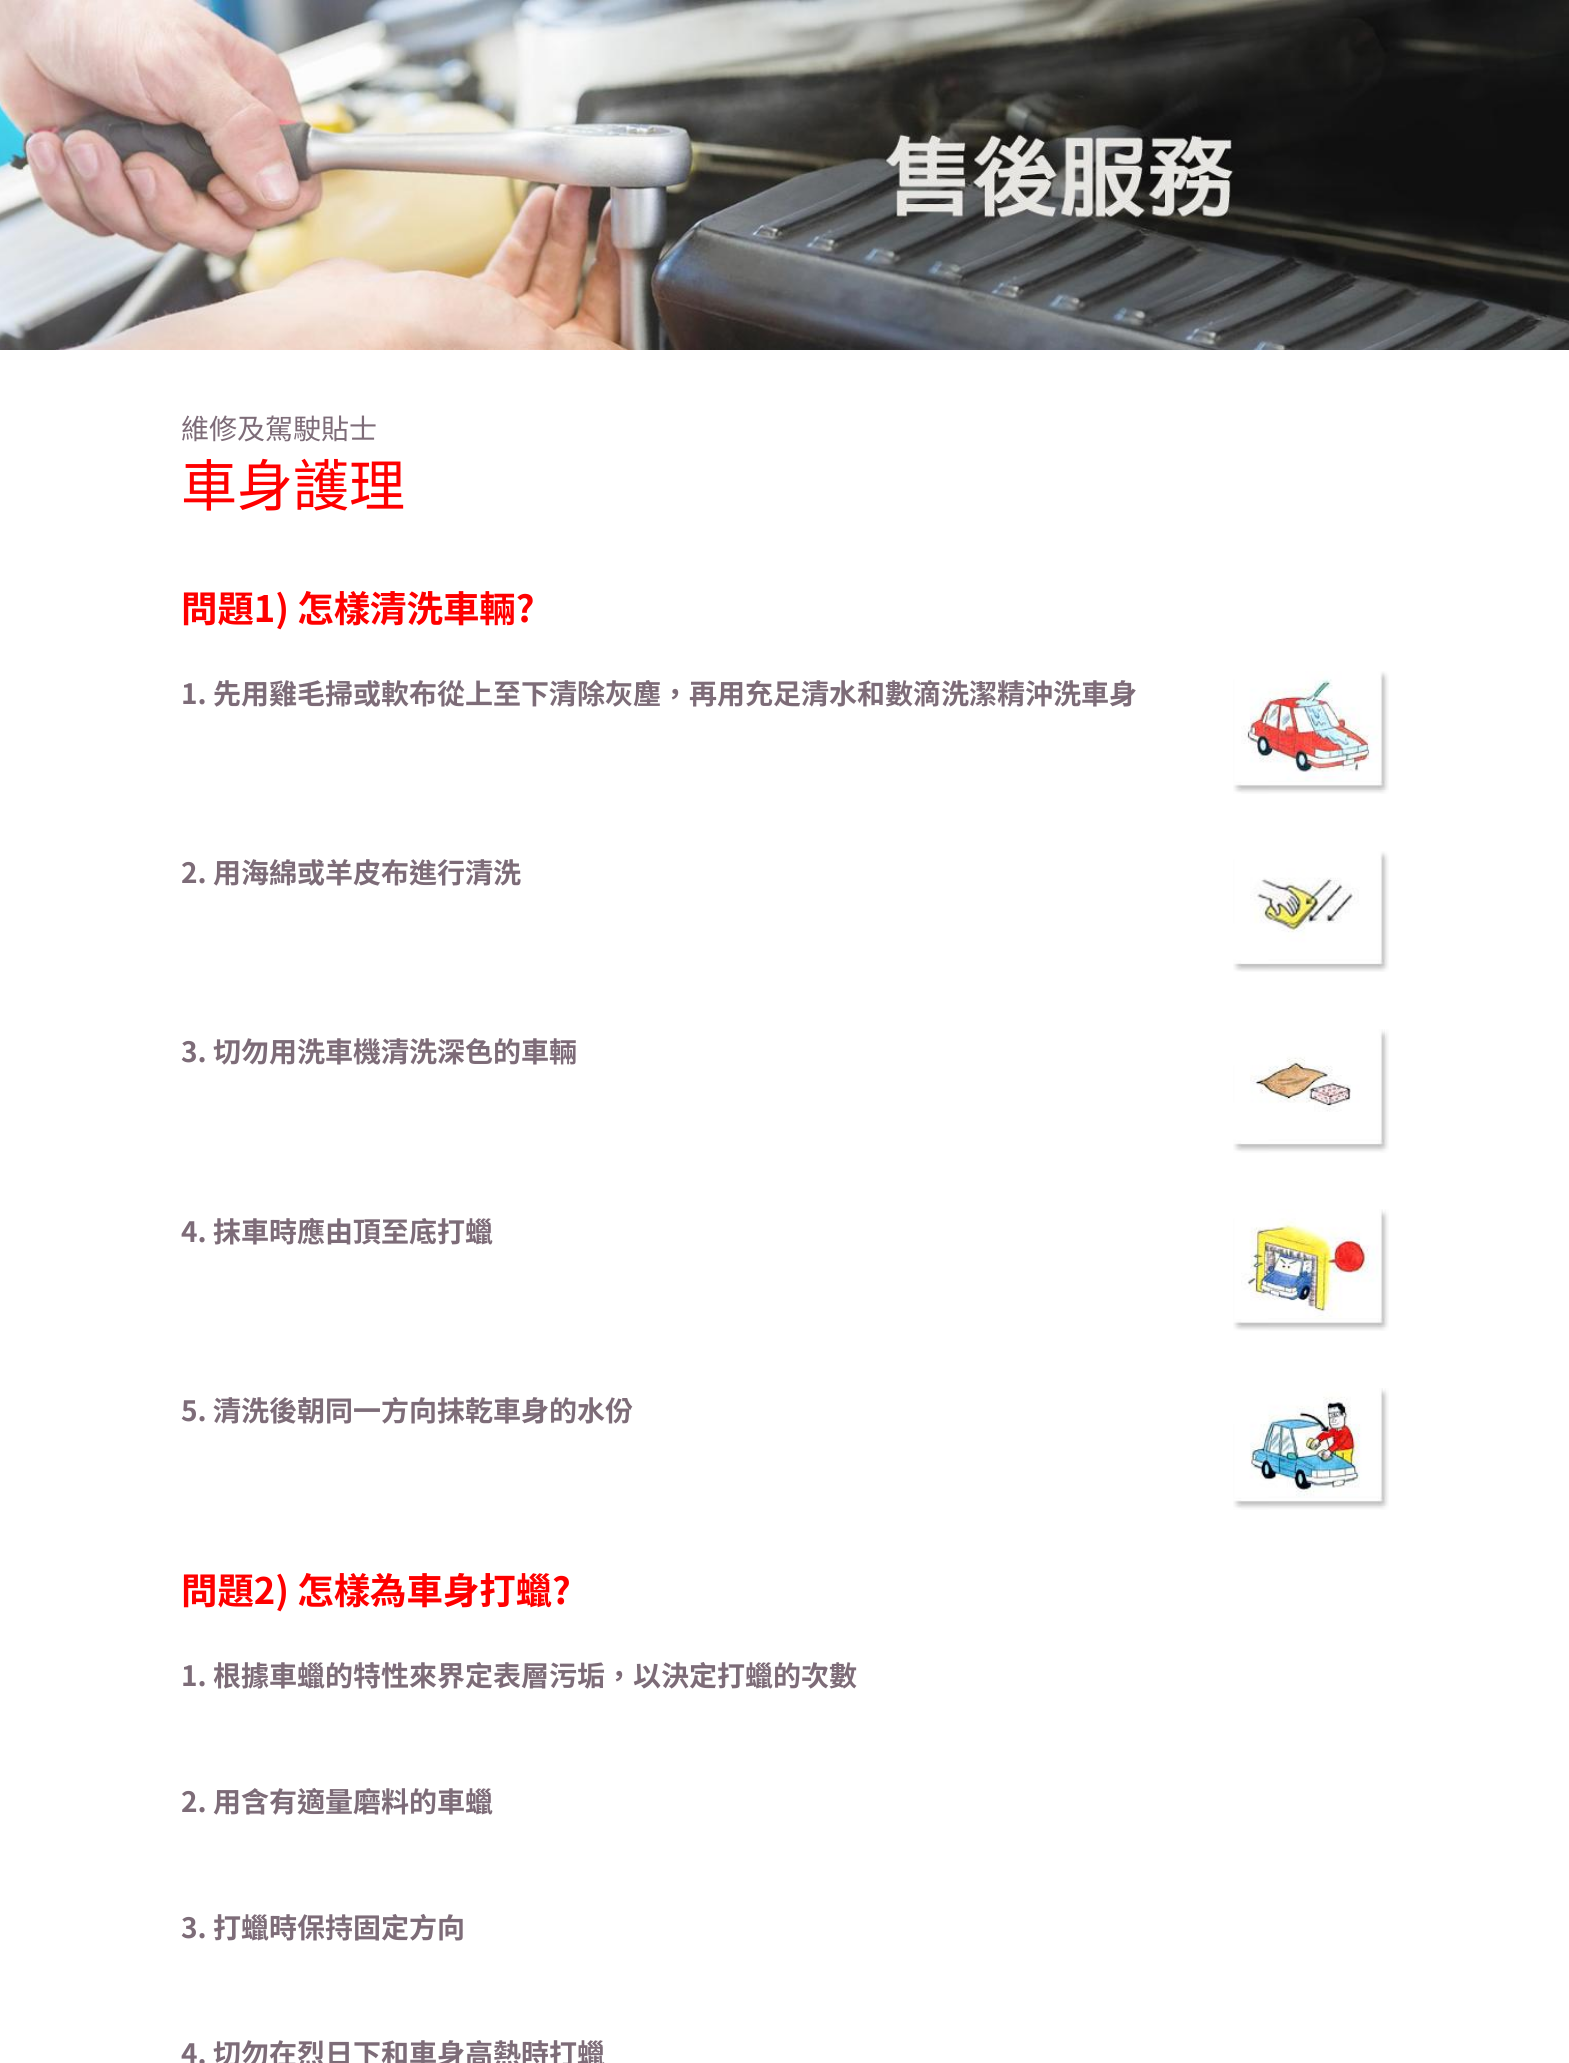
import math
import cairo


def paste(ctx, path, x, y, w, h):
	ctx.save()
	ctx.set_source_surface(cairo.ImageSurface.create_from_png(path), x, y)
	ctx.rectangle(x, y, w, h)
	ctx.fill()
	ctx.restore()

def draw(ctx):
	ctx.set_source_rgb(1, 1, 1)
	ctx.paint()
	paste(ctx, 'media/1.png', 0, 0, 1569, 350)
	ctx.select_font_face('Noto Sans TC')
	ctx.set_font_size(28)
	ctx.set_source_rgb(0.49, 0.424, 0.471)
	ctx.move_to(181, 439)
	ctx.show_text('維修及駕駛貼士')
	ctx.set_font_size(56)
	ctx.set_source_rgb(1, 0, 0)
	ctx.move_to(181, 506)
	ctx.show_text('車身護理')
	ctx.select_font_face('Noto Sans TC', cairo.FONT_SLANT_NORMAL, cairo.FONT_WEIGHT_BOLD)
	ctx.set_font_size(36.4)
	ctx.move_to(181, 622)
	ctx.show_text('問題1) 怎樣清洗車輛?')
	ctx.set_font_size(28)
	ctx.set_source_rgb(0.49, 0.424, 0.471)
	ctx.move_to(181, 704)
	ctx.show_text('1. 先用雞毛掃或軟布從上至下清除灰塵，再用充足清水和數滴洗潔精沖洗車身')
	paste(ctx, 'media/2.png', 1233, 671, 156, 123)
	ctx.move_to(181, 883)
	ctx.show_text('2. 用海綿或羊皮布進行清洗')
	paste(ctx, 'media/3.png', 1233, 851, 156, 121)
	ctx.move_to(181, 1062)
	ctx.show_text('3. 切勿用洗車機清洗深色的車輛')
	paste(ctx, 'media/4.png', 1233, 1029, 156, 124)
	ctx.move_to(181, 1242)
	ctx.show_text('4. 抹車時應由頂至底打蠟')
	paste(ctx, 'media/5.png', 1233, 1209, 156, 122)
	ctx.move_to(181, 1421)
	ctx.show_text('5. 清洗後朝同一方向抹乾車身的水份')
	paste(ctx, 'media/6.png', 1233, 1388, 156, 122)
	ctx.set_font_size(36.4)
	ctx.set_source_rgb(1, 0, 0)
	ctx.move_to(181, 1604)
	ctx.show_text('問題2) 怎樣為車身打蠟?')
	ctx.set_font_size(28)
	ctx.set_source_rgb(0.49, 0.424, 0.471)
	for x, y, s in [
		(181, 1686, '1. 根據車蠟的特性來界定表層污垢，以決定打蠟的次數'),
		(181, 1812, '2. 用含有適量磨料的車蠟'),
		(181, 1938, '3. 打蠟時保持固定方向'),
		(181, 2064, '4. 切勿在烈日下和車身高熱時打蠟'),
	]:
		ctx.move_to(x, y)
		ctx.show_text(s)


surface = cairo.ImageSurface(cairo.FORMAT_RGB24, 1569, 2063)
ctx = cairo.Context(surface)
options = cairo.FontOptions()
options.set_hint_metrics(cairo.HINT_METRICS_OFF)
options.set_hint_style(cairo.HINT_STYLE_NONE)
ctx.set_font_options(options)
ctx.set_miter_limit(4)
draw(ctx)
surface.write_to_png('image.png')
